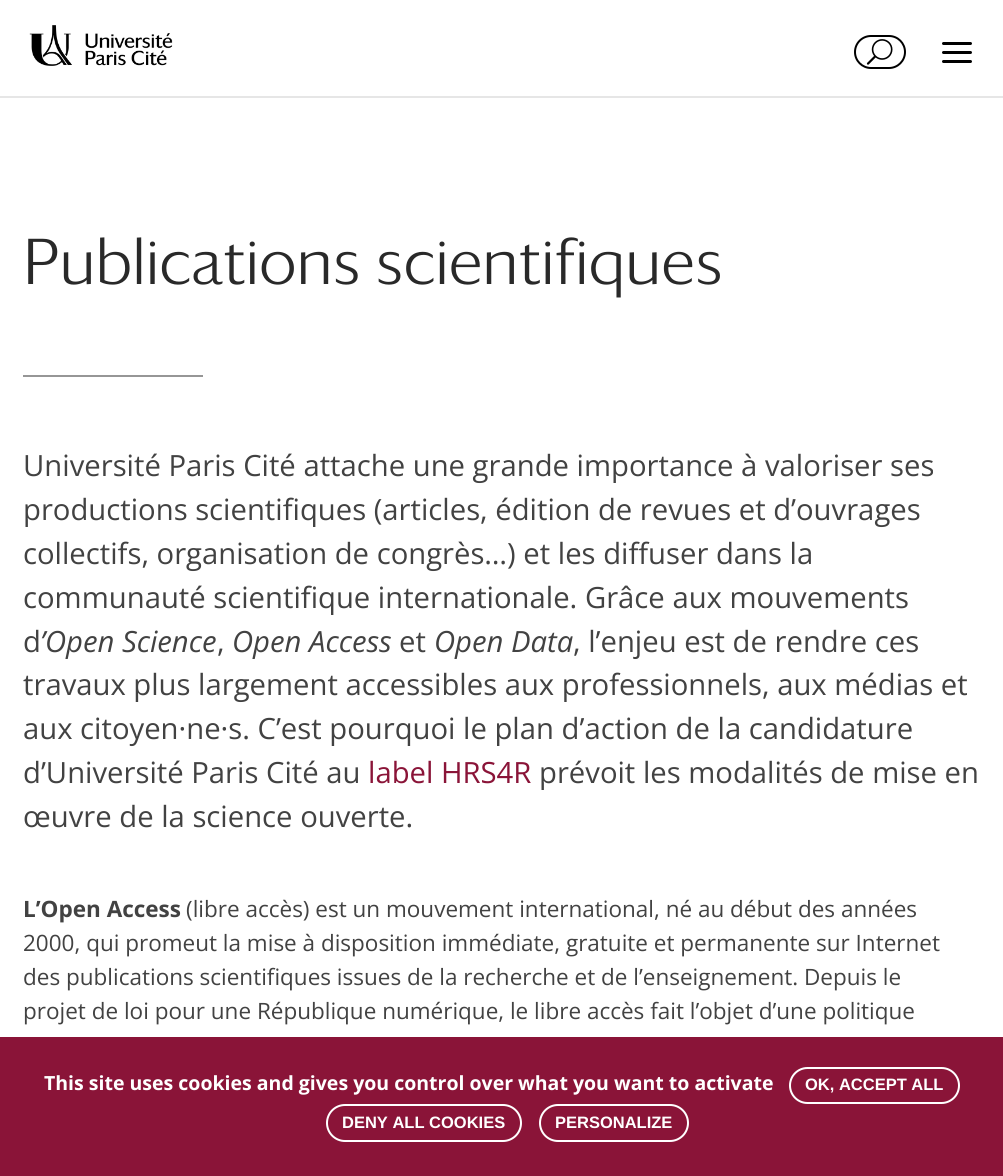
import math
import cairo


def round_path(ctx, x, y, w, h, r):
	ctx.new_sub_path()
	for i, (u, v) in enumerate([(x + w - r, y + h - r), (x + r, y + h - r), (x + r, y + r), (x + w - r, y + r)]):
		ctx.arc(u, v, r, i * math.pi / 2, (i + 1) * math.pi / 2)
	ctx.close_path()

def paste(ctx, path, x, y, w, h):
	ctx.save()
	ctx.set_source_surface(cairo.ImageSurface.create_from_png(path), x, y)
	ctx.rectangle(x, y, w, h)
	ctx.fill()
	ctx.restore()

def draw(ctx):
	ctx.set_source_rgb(1, 1, 1)
	ctx.paint()
	ctx.set_source_rgb(0.902, 0.902, 0.902)
	ctx.new_path()
	ctx.move_to(0, 96)
	ctx.line_to(0, 98)
	ctx.line_to(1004, 98)
	ctx.line_to(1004, 2)
	ctx.line_to(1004, 96)
	ctx.close_path()
	ctx.fill()
	paste(ctx, 'media/1.png', 29, 25, 144, 41)
	round_path(ctx, 855, 36, 50, 32, 16)
	ctx.set_source_rgb(0, 0, 0)
	ctx.stroke()
	paste(ctx, 'media/2.png', 866, 39, 27, 26)
	paste(ctx, 'media/3.png', 942, 42, 30, 21)
	ctx.select_font_face('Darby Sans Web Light')
	ctx.set_font_size(63)
	ctx.set_source_rgb(0.161, 0.161, 0.161)
	ctx.move_to(23, 284)
	ctx.show_text('Publications scientifiques')
	ctx.set_source_rgb(0.588, 0.588, 0.588)
	ctx.rectangle(23, 375, 180, 2)
	ctx.fill()
	ctx.select_font_face('Open Sans')
	ctx.set_font_size(29.25)
	ctx.set_source_rgb(0.259, 0.259, 0.259)
	for x, y, s in [
		(23, 476, 'Université Paris Cité attache une grande importance à valoriser ses'),
		(23, 520, 'productions scientifiques (articles, édition de revues et d’ouvrages'),
		(23, 564, 'collectifs, organisation de congrès…) et les diffuser dans la'),
		(23, 608, 'communauté scientifique internationale. Grâce aux mouvements'),
		(23, 652, 'd'),
	]:
		ctx.move_to(x, y)
		ctx.show_text(s)
	ctx.select_font_face('Open Sans', cairo.FONT_SLANT_ITALIC)
	ctx.move_to(40, 652)
	ctx.show_text('’Open Science')
	ctx.select_font_face('Open Sans')
	ctx.move_to(217, 652)
	ctx.show_text(',')
	ctx.select_font_face('Open Sans', cairo.FONT_SLANT_ITALIC)
	ctx.move_to(232, 652)
	ctx.show_text('Open Access')
	ctx.select_font_face('Open Sans')
	ctx.move_to(399, 652)
	ctx.show_text('et')
	ctx.select_font_face('Open Sans', cairo.FONT_SLANT_ITALIC)
	ctx.move_to(434, 652)
	ctx.show_text('Open Data')
	ctx.select_font_face('Open Sans')
	for x, y, s in [
		(573, 652, ', l’enjeu est de rendre ces'),
		(23, 695, 'travaux plus largement accessibles aux professionnels, aux médias et'),
		(23, 739, 'aux citoyen·ne·s. C’est pourquoi le plan d’action de la candidature'),
		(23, 783, 'd’Université Paris Cité au'),
	]:
		ctx.move_to(x, y)
		ctx.show_text(s)
	ctx.set_source_rgb(0.541, 0.082, 0.22)
	ctx.move_to(368, 783)
	ctx.show_text('label HRS4R')
	ctx.set_source_rgb(0.259, 0.259, 0.259)
	ctx.move_to(539, 783)
	ctx.show_text('prévoit les modalités de mise en')
	ctx.move_to(23, 827)
	ctx.show_text('œuvre de la science ouverte.')
	ctx.select_font_face('Open Sans', cairo.FONT_SLANT_NORMAL, cairo.FONT_WEIGHT_BOLD)
	ctx.set_font_size(22.5)
	ctx.move_to(23, 917)
	ctx.show_text('L’Open Access')
	ctx.select_font_face('Open Sans')
	for x, y, s in [
		(186, 917, '(libre accès) est un mouvement international, né au début des années'),
		(23, 951, '2000, qui promeut la mise à disposition immédiate, gratuite et permanente sur Internet'),
		(23, 985, 'des publications scientifiques issues de la recherche et de l’enseignement. Depuis le'),
		(23, 1019, 'projet de loi pour une République numérique, le libre accès fait l’objet d’une politique'),
	]:
		ctx.move_to(x, y)
		ctx.show_text(s)
	ctx.set_source_rgb(0.541, 0.082, 0.22)
	ctx.rectangle(0, 1037, 1003, 139)
	ctx.fill()
	ctx.select_font_face('Open Sans', cairo.FONT_SLANT_NORMAL, cairo.FONT_WEIGHT_BOLD)
	ctx.set_font_size(19.5)
	ctx.set_source_rgb(1, 1, 1)
	ctx.move_to(44, 1090)
	ctx.show_text('This site uses cookies and gives you control over what you want to activate')
	round_path(ctx, 790, 1068, 169, 35, 17.5)
	ctx.stroke()
	ctx.select_font_face('Liberation Sans', cairo.FONT_SLANT_NORMAL, cairo.FONT_WEIGHT_BOLD)
	ctx.set_font_size(16.5)
	ctx.move_to(805, 1090)
	ctx.show_text('OK, ACCEPT ALL')
	round_path(ctx, 327, 1105, 194, 36, 18)
	ctx.stroke()
	ctx.move_to(342, 1128)
	ctx.show_text('DENY ALL COOKIES')
	round_path(ctx, 540, 1105, 148, 36, 18)
	ctx.stroke()
	ctx.move_to(555, 1128)
	ctx.show_text('PERSONALIZE')


surface = cairo.ImageSurface(cairo.FORMAT_RGB24, 1003, 1176)
ctx = cairo.Context(surface)
options = cairo.FontOptions()
options.set_hint_metrics(cairo.HINT_METRICS_OFF)
options.set_hint_style(cairo.HINT_STYLE_NONE)
ctx.set_font_options(options)
ctx.set_miter_limit(4)
draw(ctx)
surface.write_to_png('image.png')
